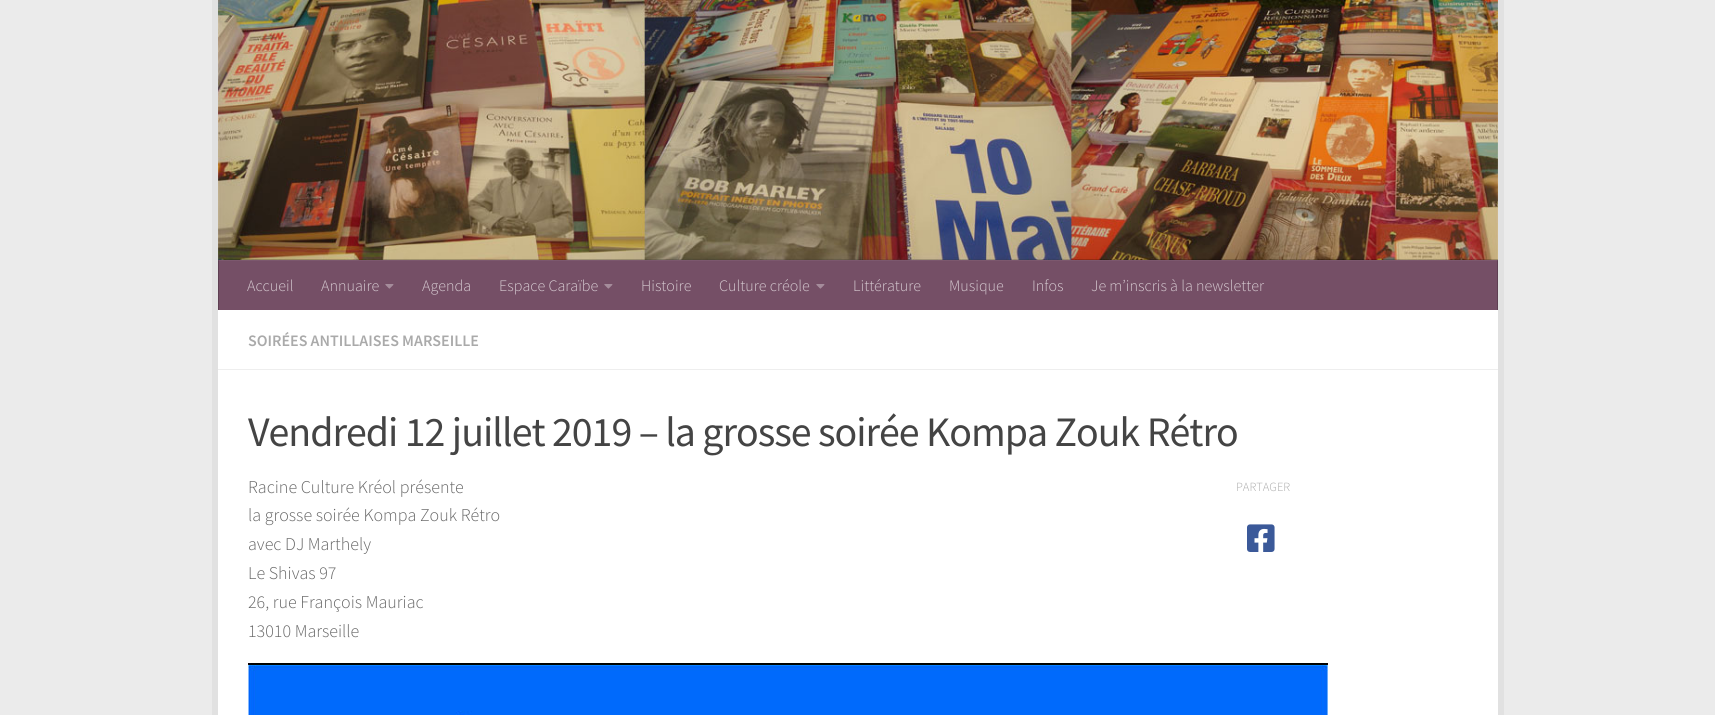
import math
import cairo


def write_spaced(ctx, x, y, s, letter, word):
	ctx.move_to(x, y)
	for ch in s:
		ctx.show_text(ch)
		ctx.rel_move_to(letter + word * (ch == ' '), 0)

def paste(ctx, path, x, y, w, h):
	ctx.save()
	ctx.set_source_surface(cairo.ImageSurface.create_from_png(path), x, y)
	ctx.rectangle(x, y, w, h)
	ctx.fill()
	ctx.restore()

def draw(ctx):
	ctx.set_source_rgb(0.918, 0.918, 0.918)
	ctx.paint()
	ctx.set_source_rgb(0.882, 0.882, 0.882)
	ctx.rectangle(212, 0, 6, 715)
	ctx.rectangle(1498, 0, 6, 715)
	ctx.fill()
	ctx.set_source_rgb(0.459, 0.31, 0.4)
	ctx.rectangle(219, 261, 1278, 49)
	ctx.fill()
	ctx.set_source_rgb(0.486, 0.345, 0.431)
	ctx.rectangle(218, 260, 1280, 1)
	ctx.fill()
	paste(ctx, 'media/1.png', 218, 0, 1280, 260)
	ctx.set_source_rgba(0, 0, 0, 0.2)
	ctx.rectangle(218, 259, 1280, 1)
	ctx.fill()
	ctx.set_source_rgb(0.369, 0.247, 0.322)
	ctx.rectangle(1497, 260, 1, 50)
	ctx.fill()
	ctx.set_source_rgb(0.4, 0.286, 0.357)
	ctx.rectangle(1497, 260, 1, 1)
	ctx.fill()
	ctx.set_source_rgb(0.369, 0.247, 0.322)
	ctx.rectangle(218, 260, 1, 50)
	ctx.fill()
	ctx.set_source_rgb(0.4, 0.286, 0.357)
	ctx.rectangle(218, 260, 1, 1)
	ctx.fill()
	ctx.select_font_face('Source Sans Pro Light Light')
	ctx.set_font_size(16)
	ctx.set_source_rgb(0.839, 0.792, 0.82)
	ctx.move_to(247, 291)
	ctx.show_text('Accueil')
	ctx.move_to(321, 291)
	ctx.show_text('Annuaire')
	paste(ctx, 'media/2.png', 385, 284, 9, 5)
	ctx.move_to(422, 291)
	ctx.show_text('Agenda')
	ctx.move_to(499, 291)
	ctx.show_text('Espace Caraïbe')
	paste(ctx, 'media/2.png', 604, 284, 9, 5)
	ctx.move_to(641, 291)
	ctx.show_text('Histoire')
	ctx.move_to(719, 291)
	ctx.show_text('Culture créole')
	paste(ctx, 'media/2.png', 816, 284, 9, 5)
	for x, y, s in [
		(853, 291, 'Littérature'),
		(949, 291, 'Musique'),
		(1032, 291, 'Infos'),
		(1091, 291, 'Je m’inscris à la newsletter'),
	]:
		ctx.move_to(x, y)
		ctx.show_text(s)
	ctx.set_source_rgb(1, 1, 1)
	ctx.rectangle(218, 310, 1280, 405)
	ctx.fill()
	ctx.set_source_rgb(0.933, 0.933, 0.933)
	ctx.rectangle(218, 369, 1280, 1)
	ctx.fill()
	ctx.select_font_face('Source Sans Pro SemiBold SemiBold')
	ctx.set_source_rgb(0.667, 0.667, 0.667)
	ctx.move_to(248, 346)
	ctx.show_text('SOIRÉES ANTILLAISES MARSEILLE')
	ctx.select_font_face('Source Sans Pro')
	ctx.set_font_size(41.9)
	ctx.set_source_rgb(0.267, 0.267, 0.267)
	write_spaced(ctx, 248, 446, 'Vendredi 12 juillet 2019 – la grosse soirée Kompa Zouk Rétro', -1, 0)
	ctx.select_font_face('Source Sans Pro Light Light')
	ctx.set_font_size(18)
	ctx.set_source_rgb(0.4, 0.4, 0.4)
	for x, y, s in [
		(248, 493, 'Racine Culture Kréol présente'),
		(248, 521, 'la grosse soirée Kompa Zouk Rétro'),
		(248, 550, 'avec DJ Marthely'),
		(248, 579, 'Le Shivas 97'),
		(248, 608, '26, rue François Mauriac'),
		(248, 637, '13010 Marseille'),
	]:
		ctx.move_to(x, y)
		ctx.show_text(s)
	paste(ctx, 'media/3.png', 248, 663, 1080, 52)
	ctx.set_font_size(12.5)
	ctx.set_source_rgb(0.667, 0.667, 0.667)
	ctx.move_to(1236, 491)
	ctx.show_text('PARTAGER')
	paste(ctx, 'media/4.png', 1247, 524, 28, 28)


surface = cairo.ImageSurface(cairo.FORMAT_RGB24, 1715, 715)
ctx = cairo.Context(surface)
options = cairo.FontOptions()
options.set_hint_metrics(cairo.HINT_METRICS_OFF)
options.set_hint_style(cairo.HINT_STYLE_NONE)
ctx.set_font_options(options)
ctx.set_miter_limit(4)
draw(ctx)
surface.write_to_png('image.png')
